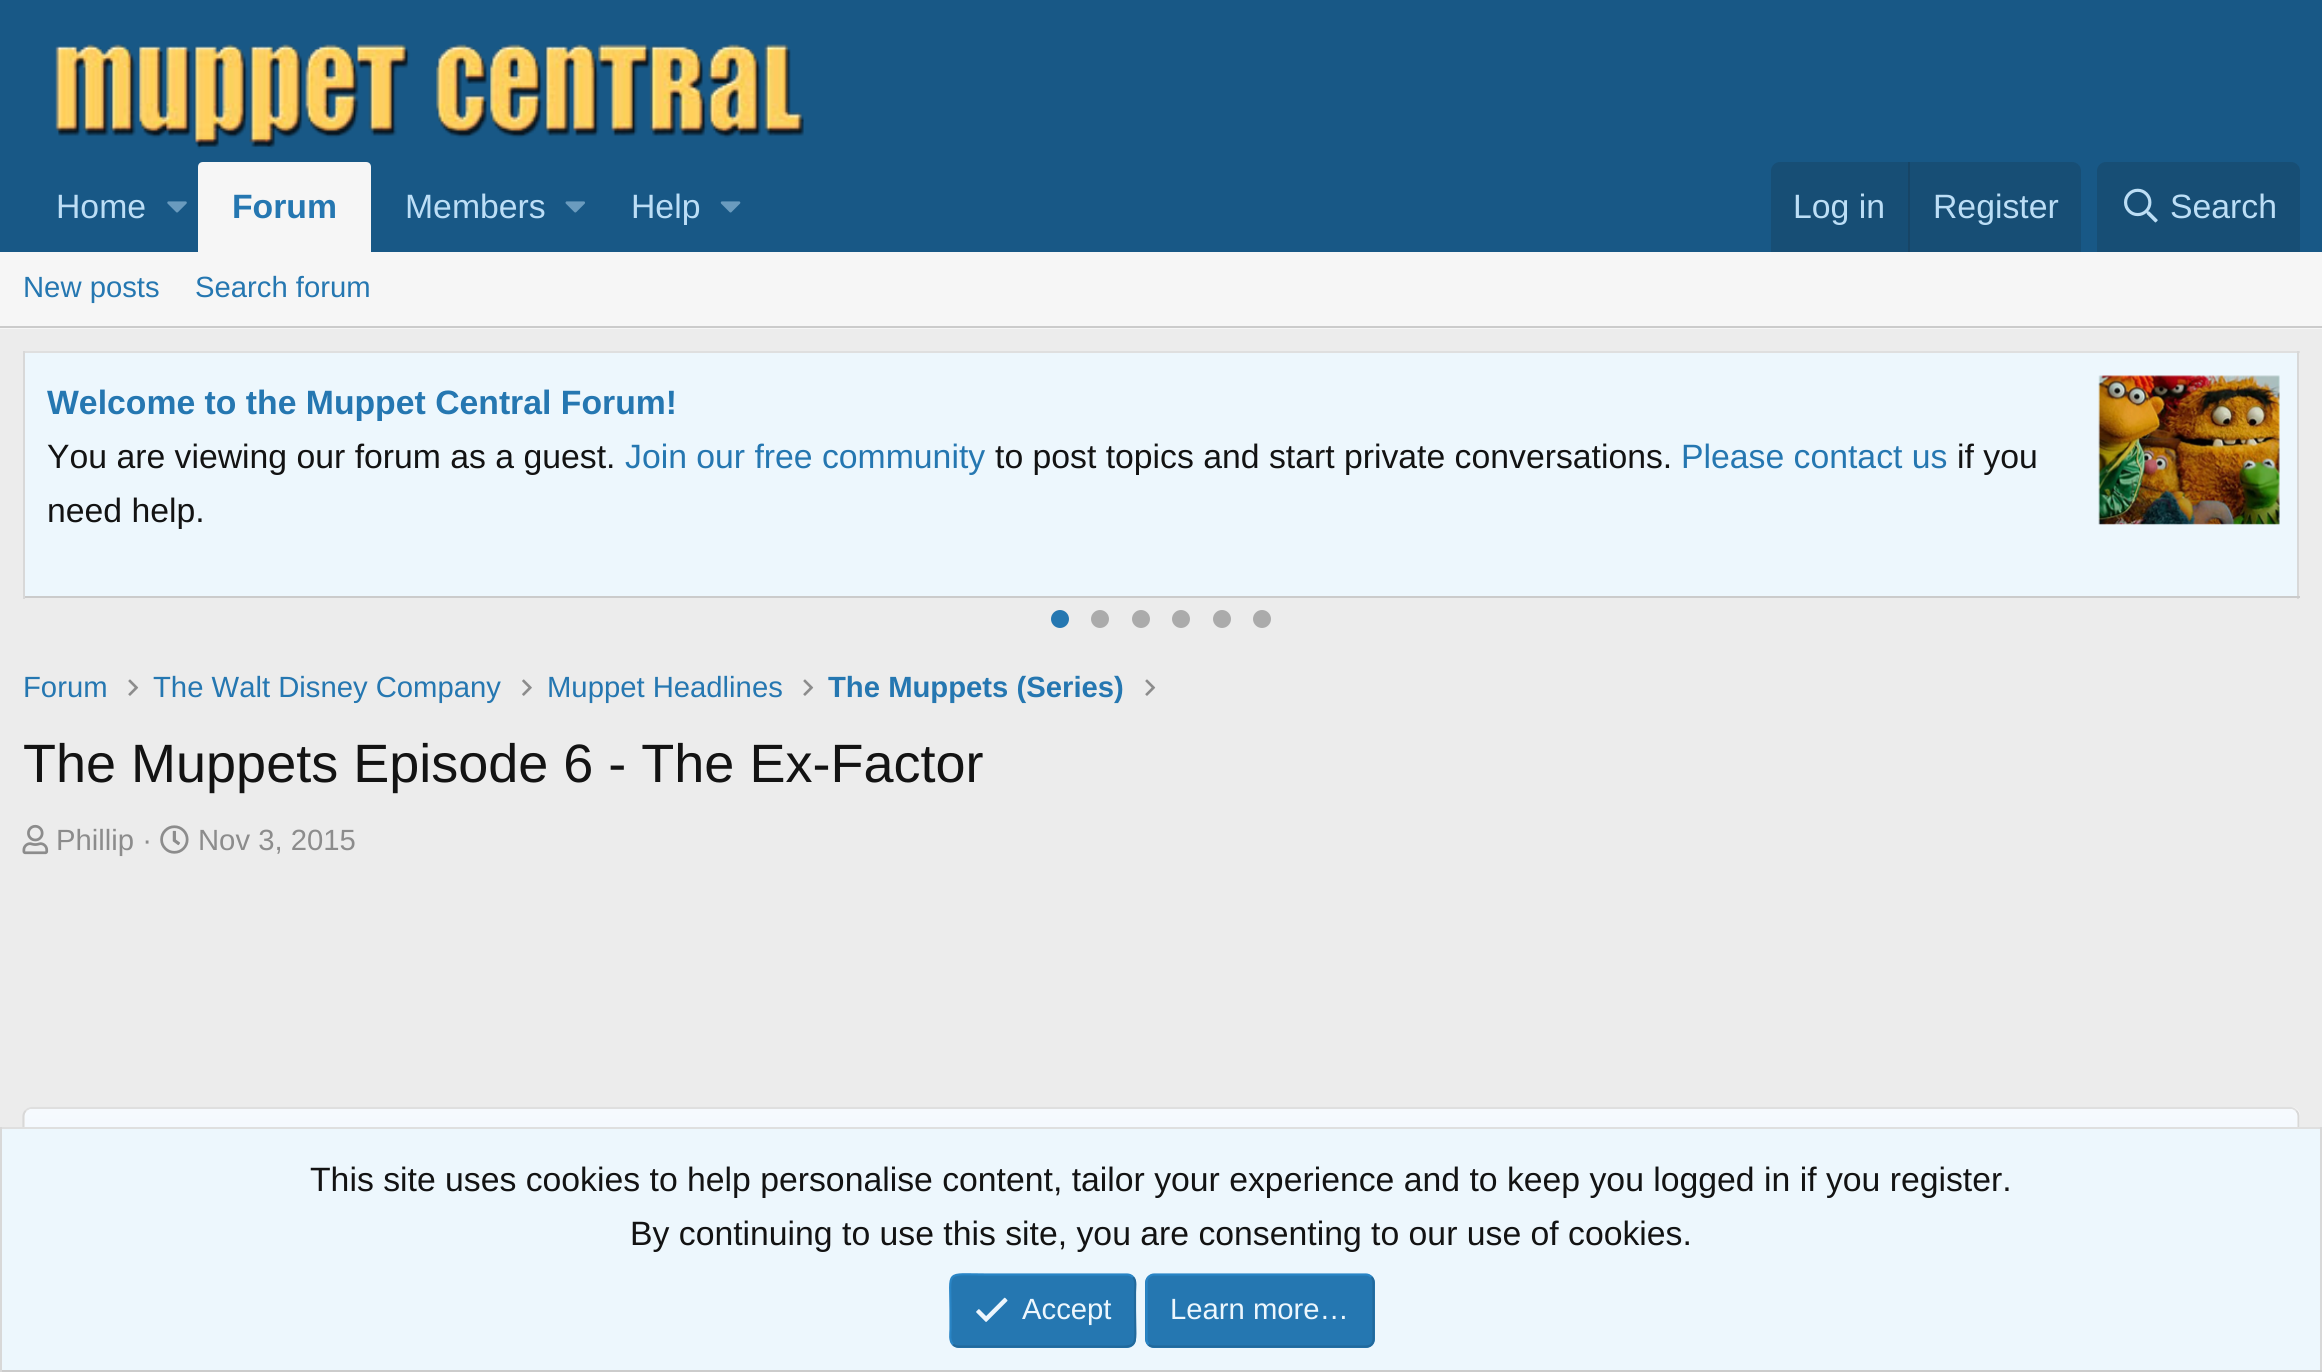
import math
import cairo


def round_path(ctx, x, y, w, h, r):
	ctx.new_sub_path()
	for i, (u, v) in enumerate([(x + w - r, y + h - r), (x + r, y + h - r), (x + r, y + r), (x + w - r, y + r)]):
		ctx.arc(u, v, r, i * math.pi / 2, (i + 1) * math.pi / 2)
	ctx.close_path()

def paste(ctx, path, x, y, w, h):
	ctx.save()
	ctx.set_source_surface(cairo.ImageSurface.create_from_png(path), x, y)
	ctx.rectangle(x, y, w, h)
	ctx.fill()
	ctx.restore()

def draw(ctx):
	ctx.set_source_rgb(0.925, 0.925, 0.925)
	ctx.paint()
	ctx.set_source_rgb(0.094, 0.345, 0.525)
	ctx.rectangle(0, 0, 2322, 252)
	ctx.fill()
	paste(ctx, 'media/1.png', 55, 44, 749, 105)
	ctx.select_font_face('Liberation Sans')
	ctx.set_font_size(33.75)
	ctx.set_source_rgb(0.737, 0.871, 0.961)
	ctx.move_to(56, 218)
	ctx.show_text('Home')
	paste(ctx, 'media/2.png', 167, 201, 20, 12)
	ctx.set_source_rgb(0.961, 0.961, 0.961)
	ctx.new_path()
	ctx.move_to(203, 162)
	ctx.line_to(366, 162)
	ctx.curve_to(369, 162, 371, 164, 371, 167)
	ctx.line_to(371, 252)
	ctx.line_to(198, 252)
	ctx.line_to(198, 167)
	ctx.curve_to(198, 164, 200, 162, 203, 162)
	ctx.close_path()
	ctx.fill()
	ctx.select_font_face('Liberation Sans', cairo.FONT_SLANT_NORMAL, cairo.FONT_WEIGHT_BOLD)
	ctx.set_source_rgb(0.145, 0.467, 0.694)
	ctx.move_to(232, 218)
	ctx.show_text('Forum')
	ctx.select_font_face('Liberation Sans')
	ctx.set_source_rgb(0.737, 0.871, 0.961)
	ctx.move_to(405, 218)
	ctx.show_text('Members')
	paste(ctx, 'media/3.png', 565, 201, 20, 12)
	ctx.move_to(631, 218)
	ctx.show_text('Help')
	paste(ctx, 'media/4.png', 720, 201, 21, 12)
	ctx.set_source_rgb(0.09, 0.306, 0.459)
	ctx.new_path()
	ctx.move_to(1780, 162)
	ctx.line_to(2072, 162)
	ctx.curve_to(2077, 162, 2081, 166, 2081, 171)
	ctx.line_to(2081, 252)
	ctx.line_to(1771, 252)
	ctx.line_to(1771, 171)
	ctx.curve_to(1771, 166, 1775, 162, 1780, 162)
	ctx.close_path()
	ctx.fill()
	ctx.set_source_rgb(0.737, 0.871, 0.961)
	ctx.move_to(1793, 218)
	ctx.show_text('Log in')
	ctx.set_source_rgb(0.09, 0.271, 0.4)
	ctx.rectangle(1908, 162, 2, 90)
	ctx.fill()
	ctx.set_source_rgb(0.737, 0.871, 0.961)
	ctx.move_to(1933, 218)
	ctx.show_text('Register')
	ctx.set_source_rgb(0.09, 0.306, 0.459)
	ctx.new_path()
	ctx.move_to(2106, 162)
	ctx.line_to(2291, 162)
	ctx.curve_to(2296, 162, 2300, 166, 2300, 171)
	ctx.line_to(2300, 252)
	ctx.line_to(2097, 252)
	ctx.line_to(2097, 171)
	ctx.curve_to(2097, 166, 2101, 162, 2106, 162)
	ctx.close_path()
	ctx.fill()
	paste(ctx, 'media/5.png', 2124, 188, 34, 35)
	ctx.set_source_rgb(0.737, 0.871, 0.961)
	ctx.move_to(2170, 218)
	ctx.show_text('Search')
	ctx.set_source_rgb(0.961, 0.961, 0.961)
	ctx.rectangle(0, 252, 2322, 77)
	ctx.fill()
	ctx.set_source_rgb(0.796, 0.796, 0.796)
	ctx.rectangle(0, 326, 2322, 2)
	ctx.fill()
	ctx.set_font_size(29.25)
	ctx.set_source_rgb(0.145, 0.467, 0.694)
	ctx.move_to(23, 297)
	ctx.show_text('New posts')
	ctx.move_to(195, 297)
	ctx.show_text('Search forum')
	ctx.set_source_rgb(0.875, 0.875, 0.875)
	ctx.rectangle(23, 351, 2277, 2)
	ctx.fill()
	ctx.set_source_rgb(0.847, 0.847, 0.847)
	ctx.rectangle(2297, 351, 2, 248)
	ctx.fill()
	ctx.set_source_rgb(0.796, 0.796, 0.796)
	ctx.rectangle(23, 596, 2277, 2)
	ctx.fill()
	ctx.set_source_rgb(0.847, 0.847, 0.847)
	ctx.rectangle(23, 351, 2, 248)
	ctx.fill()
	ctx.set_source_rgb(0.929, 0.965, 0.992)
	ctx.rectangle(25, 353, 2272, 243)
	ctx.fill()
	ctx.select_font_face('Liberation Sans', cairo.FONT_SLANT_NORMAL, cairo.FONT_WEIGHT_BOLD)
	ctx.set_font_size(33.75)
	ctx.set_source_rgb(0.145, 0.467, 0.694)
	ctx.move_to(47, 414)
	ctx.show_text('Welcome to the Muppet Central Forum!')
	paste(ctx, 'media/6.png', 2098, 375, 182, 150)
	ctx.select_font_face('Liberation Sans')
	ctx.set_source_rgb(0.078, 0.078, 0.078)
	ctx.move_to(47, 468)
	ctx.show_text('You are viewing our forum as a guest.')
	ctx.set_source_rgb(0.145, 0.467, 0.694)
	ctx.move_to(625, 468)
	ctx.show_text('Join our free community')
	ctx.set_source_rgb(0.078, 0.078, 0.078)
	ctx.move_to(995, 468)
	ctx.show_text('to post topics and start private conversations.')
	ctx.set_source_rgb(0.145, 0.467, 0.694)
	ctx.move_to(1681, 468)
	ctx.show_text('Please contact us')
	ctx.set_source_rgb(0.078, 0.078, 0.078)
	ctx.move_to(1957, 468)
	ctx.show_text('if you')
	ctx.move_to(47, 522)
	ctx.show_text('need help.')
	ctx.set_source_rgb(0.145, 0.467, 0.694)
	ctx.new_path()
	ctx.arc(1060, 619, 9, 0, 2 * math.pi)
	ctx.fill()
	ctx.set_source_rgb(0.671, 0.671, 0.671)
	ctx.arc(1100, 619, 9, 0, 2 * math.pi)
	ctx.fill()
	ctx.arc(1141, 619, 9, 0, 2 * math.pi)
	ctx.fill()
	ctx.arc(1181, 619, 9, 0, 2 * math.pi)
	ctx.fill()
	ctx.arc(1222, 619, 9, 0, 2 * math.pi)
	ctx.fill()
	ctx.arc(1262, 619, 9, 0, 2 * math.pi)
	ctx.fill()
	ctx.set_font_size(29.25)
	ctx.set_source_rgb(0.145, 0.467, 0.694)
	ctx.move_to(23, 697)
	ctx.show_text('Forum')
	paste(ctx, 'media/7.png', 128, 679, 11, 17)
	ctx.move_to(153, 697)
	ctx.show_text('The Walt Disney Company')
	paste(ctx, 'media/8.png', 522, 679, 10, 17)
	ctx.move_to(547, 697)
	ctx.show_text('Muppet Headlines')
	paste(ctx, 'media/7.png', 803, 679, 11, 17)
	ctx.select_font_face('Liberation Sans', cairo.FONT_SLANT_NORMAL, cairo.FONT_WEIGHT_BOLD)
	ctx.move_to(828, 697)
	ctx.show_text('The Muppets (Series)')
	paste(ctx, 'media/7.png', 1145, 679, 11, 17)
	ctx.select_font_face('Liberation Sans')
	ctx.set_font_size(54)
	ctx.set_source_rgb(0.078, 0.078, 0.078)
	ctx.move_to(23, 782)
	ctx.show_text('The Muppets Episode 6 - The Ex-Factor')
	paste(ctx, 'media/9.png', 22, 824, 27, 31)
	ctx.set_font_size(29.25)
	ctx.set_source_rgb(0.549, 0.549, 0.549)
	ctx.move_to(56, 850)
	ctx.show_text('Phillip ·')
	paste(ctx, 'media/10.png', 160, 825, 29, 29)
	ctx.move_to(198, 850)
	ctx.show_text('Nov 3, 2015')
	ctx.set_source_rgb(0.996, 0.996, 0.996)
	round_path(ctx, 23, 1107, 2277, 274, 9)
	ctx.fill()
	ctx.new_path()
	ctx.move_to(26, 1110.5)
	ctx.curve_to(27.5, 1109, 29.5, 1108, 31.5, 1108)
	ctx.line_to(2290.5, 1108)
	ctx.curve_to(2292.5, 1108, 2294.5, 1109, 2296, 1110.5)
	ctx.set_source_rgb(0.875, 0.875, 0.875)
	ctx.set_line_width(2.2)
	ctx.stroke()
	ctx.new_path()
	ctx.move_to(2296, 1110.5)
	ctx.curve_to(2297.5, 1112, 2298.5, 1114, 2298.5, 1116)
	ctx.line_to(2298.5, 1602)
	ctx.curve_to(2298.5, 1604, 2297.5, 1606, 2296, 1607.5)
	ctx.set_source_rgb(0.847, 0.847, 0.847)
	ctx.stroke()
	ctx.new_path()
	ctx.move_to(26, 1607.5)
	ctx.curve_to(24.5, 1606, 23.5, 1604, 23.5, 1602)
	ctx.line_to(23.5, 1116)
	ctx.curve_to(23.5, 1114, 24.5, 1112, 26, 1110.5)
	ctx.stroke()
	gradient = cairo.LinearGradient(1161, 1208, 1161, 1109)
	gradient.add_color_stop_rgba(0, 0.929, 0.965, 0.992, 1)
	gradient.add_color_stop_rgba(1, 0.965, 0.98, 0.996, 1)
	ctx.set_source(gradient)
	ctx.new_path()
	ctx.move_to(32, 1109)
	ctx.line_to(2290, 1109)
	ctx.curve_to(2294, 1109, 2297, 1112, 2297, 1116)
	ctx.line_to(2297, 1208)
	ctx.line_to(25, 1208)
	ctx.line_to(25, 1116)
	ctx.curve_to(25, 1112, 28, 1109, 32, 1109)
	ctx.close_path()
	ctx.fill()
	ctx.set_source_rgb(0.929, 0.965, 0.992)
	ctx.rectangle(2, 1129, 2318, 241)
	ctx.fill()
	ctx.set_source_rgb(0.875, 0.875, 0.875)
	ctx.rectangle(0, 1127, 2322, 2)
	ctx.fill()
	ctx.set_source_rgb(0.847, 0.847, 0.847)
	ctx.rectangle(2320, 1127, 2, 245)
	ctx.fill()
	ctx.set_source_rgb(0.796, 0.796, 0.796)
	ctx.rectangle(0, 1370, 2322, 2)
	ctx.fill()
	ctx.set_source_rgb(0.847, 0.847, 0.847)
	ctx.rectangle(0, 1127, 2, 245)
	ctx.fill()
	ctx.set_font_size(33.75)
	ctx.set_source_rgb(0.078, 0.078, 0.078)
	ctx.move_to(310, 1191)
	ctx.show_text('This site uses cookies to help personalise content, tailor your experience and to keep you logged in if you register.')
	ctx.move_to(630, 1245)
	ctx.show_text('By continuing to use this site, you are consenting to our use of cookies.')
	ctx.set_source_rgb(0.145, 0.467, 0.694)
	round_path(ctx, 950, 1274, 186, 74, 9)
	ctx.fill()
	ctx.new_path()
	ctx.move_to(1133, 1277)
	ctx.curve_to(1136.5, 1280.5, 1135, 1287.5, 1135, 1292)
	ctx.line_to(1135, 1310.5)
	ctx.curve_to(1135, 1352, 1141.5, 1346.5, 1099, 1346.5)
	ctx.line_to(958.5, 1346.5)
	ctx.curve_to(956.5, 1346.5, 954.5, 1346, 953, 1344.5)
	ctx.set_source_rgb(0.129, 0.412, 0.612)
	ctx.stroke()
	ctx.new_path()
	ctx.move_to(953, 1344.5)
	ctx.curve_to(949, 1340.5, 950.5, 1333.5, 950.5, 1329.5)
	ctx.line_to(950.5, 1310.5)
	ctx.curve_to(950.5, 1269, 944, 1274.5, 986.5, 1274.5)
	ctx.line_to(1127, 1274.5)
	ctx.curve_to(1129.5, 1274.5, 1131.5, 1275.5, 1133, 1277)
	ctx.set_source_rgb(0.161, 0.522, 0.776)
	ctx.stroke()
	paste(ctx, 'media/11.png', 976, 1297, 32, 25)
	ctx.set_font_size(29.25)
	ctx.set_source_rgb(0.929, 0.965, 0.992)
	ctx.move_to(1022, 1319)
	ctx.show_text('Accept')
	ctx.set_source_rgb(0.145, 0.467, 0.694)
	round_path(ctx, 1145, 1274, 230, 74, 9)
	ctx.fill()
	ctx.new_path()
	ctx.move_to(1371.5, 1277)
	ctx.curve_to(1373, 1278.5, 1373.5, 1280.5, 1373.5, 1282.5)
	ctx.line_to(1373.5, 1339)
	ctx.curve_to(1373.5, 1341, 1373, 1343, 1371.5, 1344.5)
	ctx.curve_to(1370, 1346, 1368, 1346.5, 1366, 1346.5)
	ctx.line_to(1154, 1346.5)
	ctx.curve_to(1152, 1346.5, 1150, 1346, 1148.5, 1344.5)
	ctx.set_source_rgb(0.129, 0.412, 0.612)
	ctx.stroke()
	ctx.new_path()
	ctx.move_to(1148.5, 1344.5)
	ctx.curve_to(1147, 1343, 1146.5, 1341, 1146.5, 1339)
	ctx.line_to(1146.5, 1282.5)
	ctx.curve_to(1146.5, 1280.5, 1147, 1278.5, 1148.5, 1277)
	ctx.curve_to(1150, 1275.5, 1152, 1274.5, 1154, 1274.5)
	ctx.line_to(1366, 1274.5)
	ctx.curve_to(1368, 1274.5, 1370, 1275.5, 1371.5, 1277)
	ctx.set_source_rgb(0.161, 0.522, 0.776)
	ctx.stroke()
	ctx.set_source_rgb(0.929, 0.965, 0.992)
	ctx.move_to(1170, 1319)
	ctx.show_text('Learn more…')


surface = cairo.ImageSurface(cairo.FORMAT_RGB24, 2322, 1372)
ctx = cairo.Context(surface)
options = cairo.FontOptions()
options.set_hint_metrics(cairo.HINT_METRICS_OFF)
options.set_hint_style(cairo.HINT_STYLE_NONE)
ctx.set_font_options(options)
ctx.set_miter_limit(4)
draw(ctx)
surface.write_to_png('image.png')
